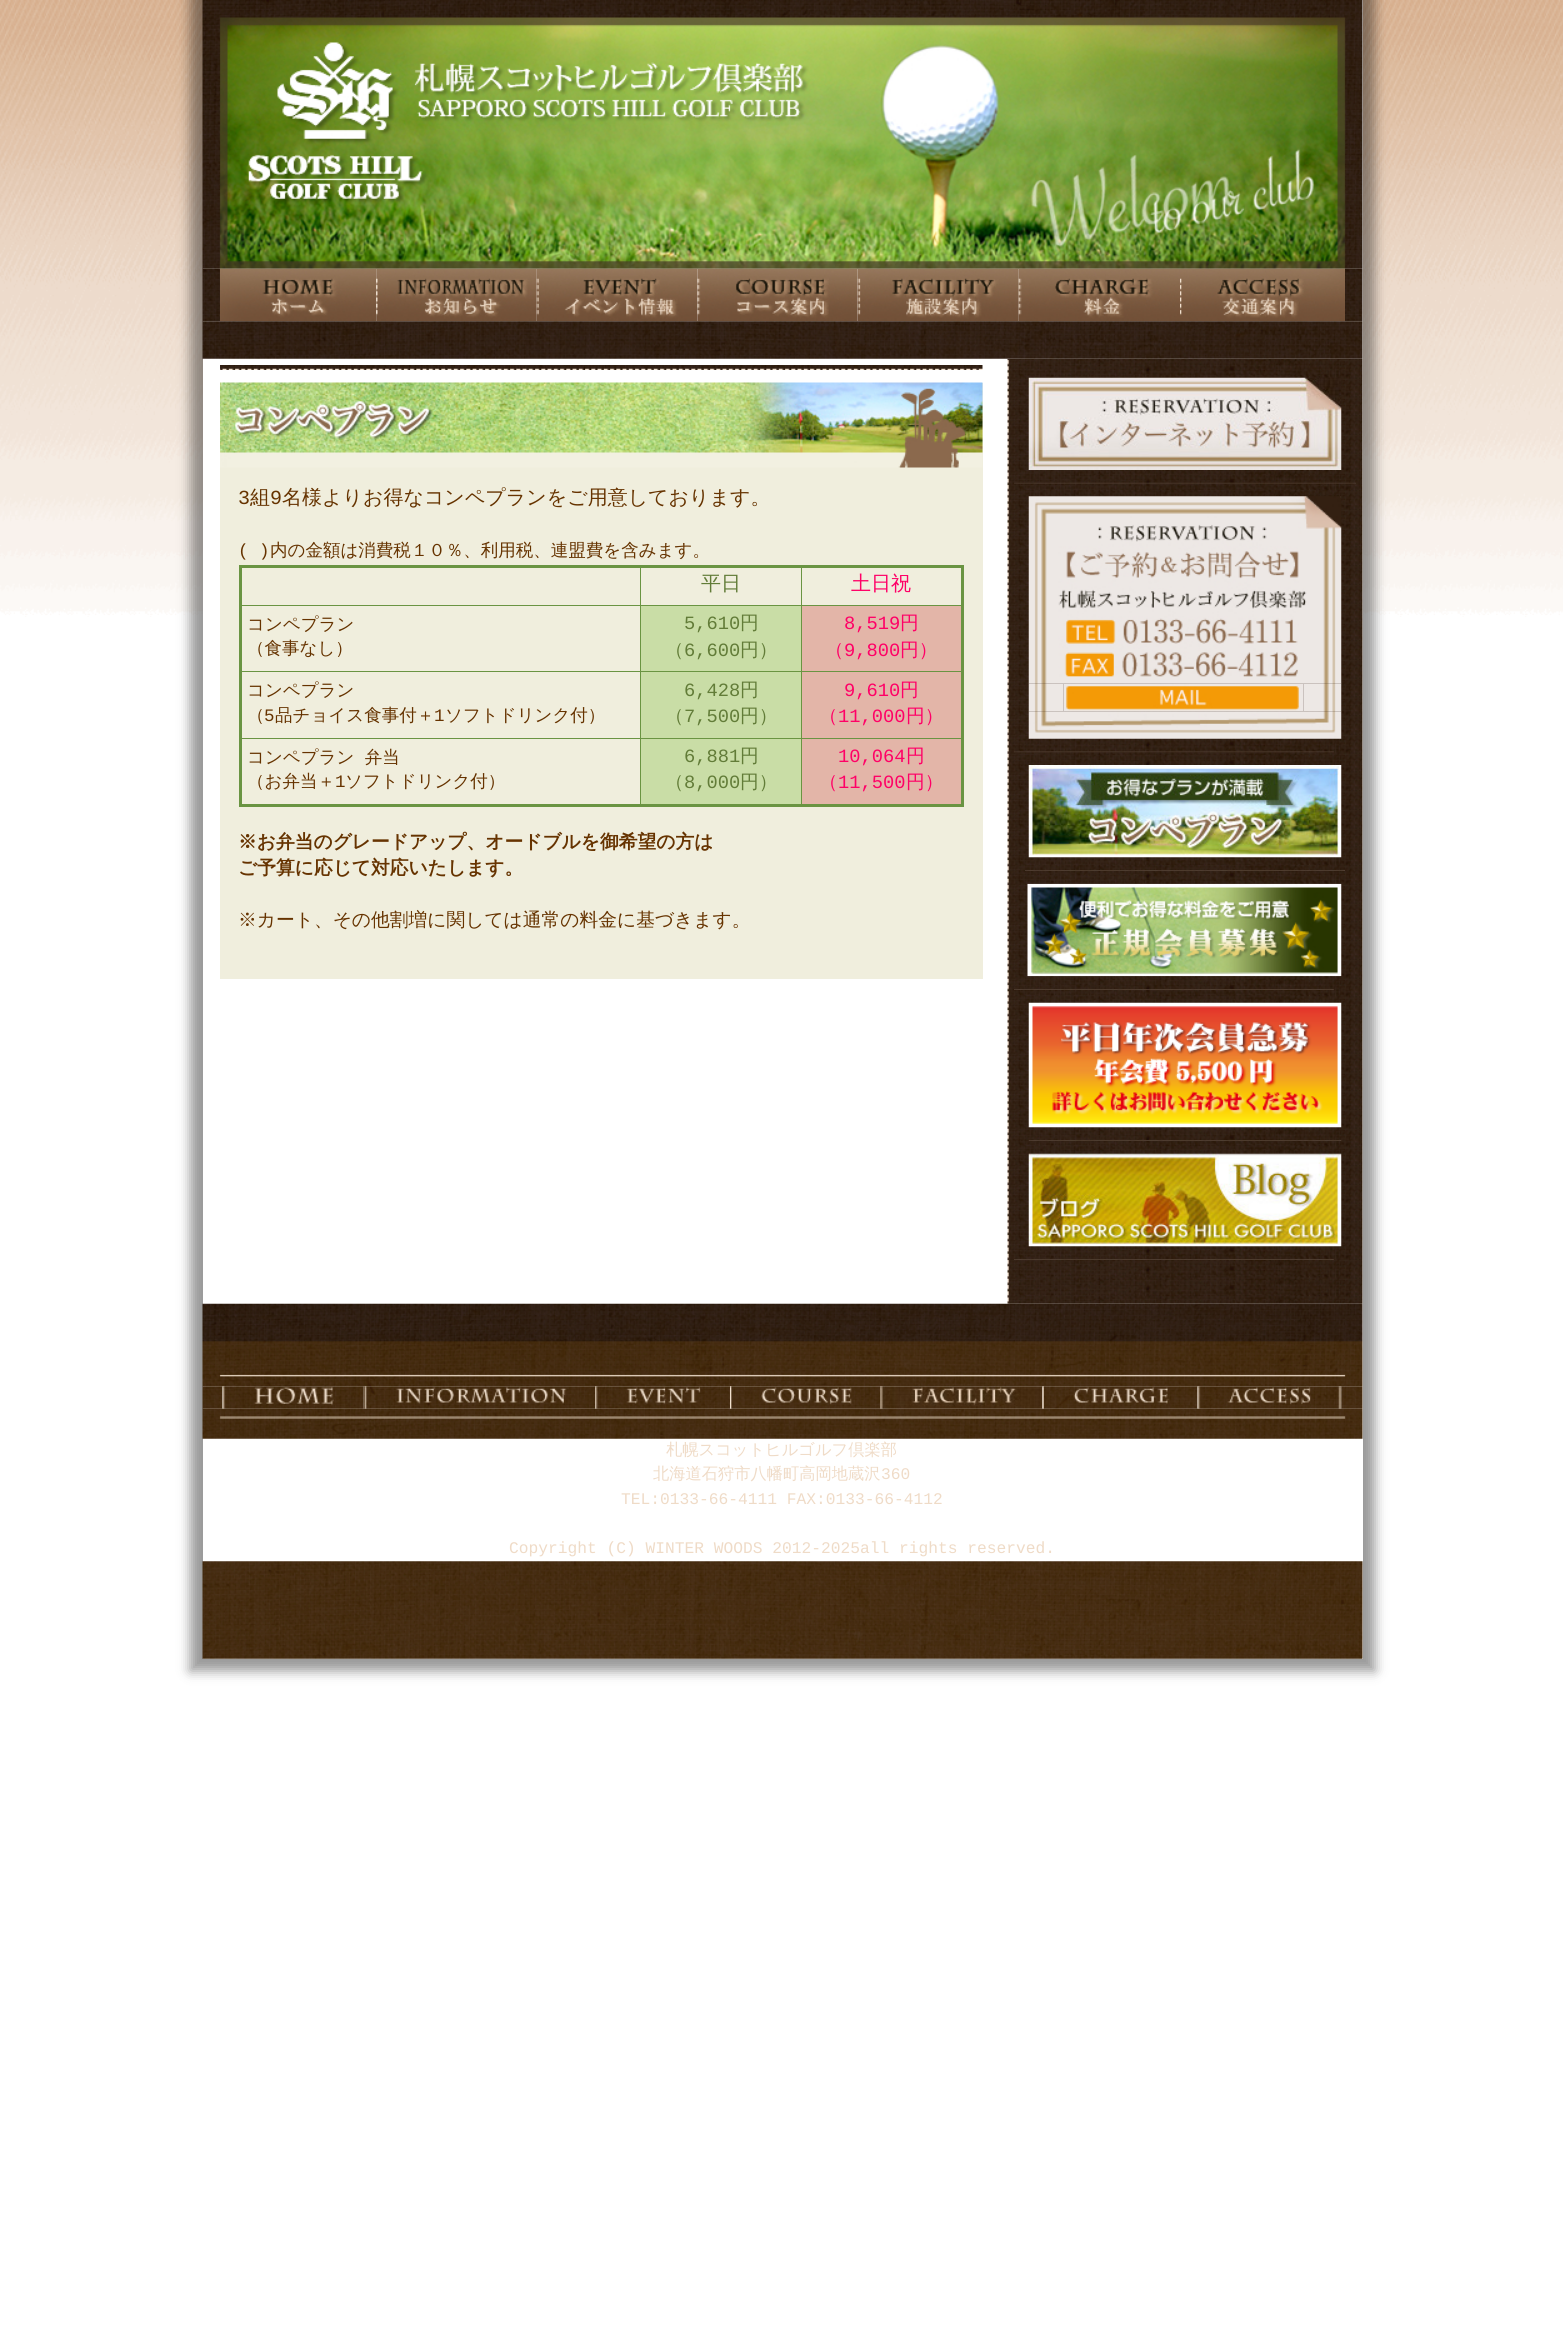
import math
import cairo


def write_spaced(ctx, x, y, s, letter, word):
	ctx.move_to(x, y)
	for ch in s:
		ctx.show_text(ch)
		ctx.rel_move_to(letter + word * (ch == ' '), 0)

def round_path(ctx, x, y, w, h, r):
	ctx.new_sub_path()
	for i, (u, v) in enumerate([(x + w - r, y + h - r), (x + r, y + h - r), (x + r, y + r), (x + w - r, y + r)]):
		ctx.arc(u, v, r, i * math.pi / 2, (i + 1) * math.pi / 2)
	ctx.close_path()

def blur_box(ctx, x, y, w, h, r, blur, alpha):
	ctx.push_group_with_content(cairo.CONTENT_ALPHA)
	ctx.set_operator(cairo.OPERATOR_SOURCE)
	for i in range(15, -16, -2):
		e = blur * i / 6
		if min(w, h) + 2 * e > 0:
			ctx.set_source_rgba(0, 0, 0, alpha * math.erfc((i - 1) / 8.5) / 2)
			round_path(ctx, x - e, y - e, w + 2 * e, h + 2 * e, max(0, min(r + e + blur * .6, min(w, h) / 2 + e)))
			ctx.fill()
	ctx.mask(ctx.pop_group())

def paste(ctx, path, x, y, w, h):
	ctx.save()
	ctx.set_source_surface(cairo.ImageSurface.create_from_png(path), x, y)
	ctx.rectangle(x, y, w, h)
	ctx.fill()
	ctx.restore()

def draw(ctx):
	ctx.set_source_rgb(1, 1, 1)
	ctx.paint()
	paste(ctx, 'media/1.png', 0, 0, 1563, 617)
	ctx.set_source_rgb(0, 0, 0)
	blur_box(ctx, 190, -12, 1185, 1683, 0, 6, 0.4)
	ctx.set_source_rgb(1, 1, 1)
	ctx.rectangle(203, 0, 1160, 1659)
	ctx.fill()
	paste(ctx, 'media/2.png', 202, 0, 1161, 269)
	paste(ctx, 'media/3.png', 202, 268, 18, 54)
	paste(ctx, 'media/4.png', 220, 268, 157, 54)
	paste(ctx, 'media/5.png', 376, 268, 161, 54)
	paste(ctx, 'media/6.png', 536, 268, 162, 54)
	paste(ctx, 'media/7.png', 697, 268, 161, 54)
	paste(ctx, 'media/8.png', 857, 268, 162, 54)
	paste(ctx, 'media/9.png', 1018, 268, 162, 54)
	paste(ctx, 'media/10.png', 1180, 268, 165, 54)
	paste(ctx, 'media/11.png', 1345, 268, 18, 54)
	paste(ctx, 'media/15.png', 1007, 358, 356, 946)
	paste(ctx, 'media/12.png', 202, 321, 1161, 38)
	paste(ctx, 'media/13.png', 220, 365, 763, 5)
	ctx.set_source_rgb(0.941, 0.933, 0.867)
	ctx.rectangle(220, 383, 763, 596)
	ctx.fill()
	paste(ctx, 'media/14.png', 220, 382, 763, 86)
	ctx.select_font_face('Liberation Mono')
	ctx.set_font_size(20)
	ctx.set_source_rgb(0.4, 0.2, 0)
	ctx.move_to(238, 504)
	ctx.show_text('3')
	ctx.select_font_face('WenQuanYi Zen Hei Medium')
	ctx.move_to(250, 504)
	ctx.show_text('組')
	ctx.select_font_face('Liberation Mono')
	ctx.move_to(270, 504)
	ctx.show_text('9')
	ctx.select_font_face('WenQuanYi Zen Hei Medium')
	ctx.move_to(282, 504)
	ctx.show_text('名様よりお得なコンペプランをご用意しております。')
	ctx.select_font_face('Liberation Mono')
	ctx.set_font_size(17.5)
	ctx.move_to(238, 556)
	ctx.show_text('( )')
	ctx.select_font_face('WenQuanYi Zen Hei Medium')
	ctx.move_to(270, 556)
	ctx.show_text('内の金額は消費税１０％、利用税、連盟費を含みます。')
	ctx.set_source_rgb(0.416, 0.58, 0.259)
	ctx.rectangle(801, 605, 162, 1)
	ctx.rectangle(801, 671, 162, 1)
	ctx.rectangle(801, 738, 162, 1)
	ctx.rectangle(801, 738, 1, 67)
	ctx.rectangle(640, 738, 163, 1)
	ctx.rectangle(801, 671, 1, 68)
	ctx.rectangle(640, 671, 163, 1)
	ctx.rectangle(801, 605, 1, 68)
	ctx.rectangle(640, 605, 163, 1)
	ctx.rectangle(640, 738, 1, 67)
	ctx.rectangle(239, 738, 402, 1)
	ctx.rectangle(640, 671, 1, 68)
	ctx.rectangle(239, 671, 402, 1)
	ctx.rectangle(640, 605, 1, 68)
	ctx.rectangle(239, 605, 402, 1)
	ctx.rectangle(640, 566, 1, 40)
	ctx.rectangle(801, 566, 1, 40)
	ctx.rectangle(239, 565, 725, 3)
	ctx.rectangle(961, 565, 3, 241)
	ctx.rectangle(239, 804, 725, 3)
	ctx.rectangle(239, 565, 3, 241)
	ctx.fill()
	ctx.set_font_size(20)
	ctx.set_source_rgb(0.384, 0.486, 0.22)
	ctx.move_to(701, 590)
	ctx.show_text('平日')
	ctx.set_source_rgb(1, 0, 0.4)
	ctx.move_to(851, 590)
	ctx.show_text('土日祝')
	ctx.set_font_size(17.5)
	ctx.set_source_rgb(0.4, 0.2, 0)
	ctx.move_to(247, 630)
	ctx.show_text('コンペプラン')
	ctx.move_to(247, 654)
	ctx.show_text('（食事なし）')
	ctx.set_source_rgb(0.788, 0.867, 0.651)
	ctx.rectangle(641, 606, 160, 65)
	ctx.fill()
	ctx.select_font_face('Liberation Mono')
	ctx.set_font_size(18.75)
	ctx.set_source_rgb(0.384, 0.486, 0.22)
	ctx.move_to(684, 629)
	ctx.show_text('5,610')
	ctx.select_font_face('WenQuanYi Zen Hei Medium')
	ctx.move_to(740, 629)
	ctx.show_text('円')
	ctx.move_to(665, 656)
	ctx.show_text('（')
	ctx.select_font_face('Liberation Mono')
	ctx.move_to(684, 656)
	ctx.show_text('6,600')
	ctx.select_font_face('WenQuanYi Zen Hei Medium')
	ctx.move_to(740, 656)
	ctx.show_text('円）')
	ctx.set_source_rgb(0.89, 0.71, 0.659)
	ctx.rectangle(802, 606, 159, 65)
	ctx.fill()
	ctx.select_font_face('Liberation Mono')
	ctx.set_source_rgb(1, 0, 0.4)
	ctx.move_to(844, 629)
	ctx.show_text('8,519')
	ctx.select_font_face('WenQuanYi Zen Hei Medium')
	ctx.move_to(900, 629)
	ctx.show_text('円')
	ctx.move_to(825, 656)
	ctx.show_text('（')
	ctx.select_font_face('Liberation Mono')
	ctx.move_to(844, 656)
	ctx.show_text('9,800')
	ctx.select_font_face('WenQuanYi Zen Hei Medium')
	ctx.move_to(900, 656)
	ctx.show_text('円）')
	ctx.set_font_size(17.5)
	ctx.set_source_rgb(0.4, 0.2, 0)
	ctx.move_to(247, 696)
	ctx.show_text('コンペプラン')
	ctx.move_to(247, 721)
	ctx.show_text('（')
	ctx.select_font_face('Liberation Mono')
	ctx.move_to(264, 721)
	ctx.show_text('5')
	ctx.select_font_face('WenQuanYi Zen Hei Medium')
	ctx.move_to(275, 721)
	ctx.show_text('品チョイス食事付＋')
	ctx.select_font_face('Liberation Mono')
	ctx.move_to(434, 721)
	ctx.show_text('1')
	ctx.select_font_face('WenQuanYi Zen Hei Medium')
	ctx.move_to(445, 721)
	ctx.show_text('ソフトドリンク付）')
	ctx.set_source_rgb(0.788, 0.867, 0.651)
	ctx.rectangle(641, 672, 160, 66)
	ctx.fill()
	ctx.select_font_face('Liberation Mono')
	ctx.set_font_size(18.75)
	ctx.set_source_rgb(0.384, 0.486, 0.22)
	ctx.move_to(684, 696)
	ctx.show_text('6,428')
	ctx.select_font_face('WenQuanYi Zen Hei Medium')
	ctx.move_to(740, 696)
	ctx.show_text('円')
	ctx.move_to(665, 722)
	ctx.show_text('（')
	ctx.select_font_face('Liberation Mono')
	ctx.move_to(684, 722)
	ctx.show_text('7,500')
	ctx.select_font_face('WenQuanYi Zen Hei Medium')
	ctx.move_to(740, 722)
	ctx.show_text('円）')
	ctx.set_source_rgb(0.89, 0.71, 0.659)
	ctx.rectangle(802, 672, 159, 66)
	ctx.fill()
	ctx.select_font_face('Liberation Mono')
	ctx.set_source_rgb(1, 0, 0.4)
	ctx.move_to(844, 696)
	ctx.show_text('9,610')
	ctx.select_font_face('WenQuanYi Zen Hei Medium')
	ctx.move_to(900, 696)
	ctx.show_text('円')
	ctx.move_to(819, 722)
	ctx.show_text('（')
	ctx.select_font_face('Liberation Mono')
	ctx.move_to(838, 722)
	ctx.show_text('11,000')
	ctx.select_font_face('WenQuanYi Zen Hei Medium')
	ctx.move_to(906, 722)
	ctx.show_text('円）')
	ctx.set_font_size(17.5)
	ctx.set_source_rgb(0.4, 0.2, 0)
	write_spaced(ctx, 247, 763, 'コンペプラン 弁当', 0, 5)
	ctx.move_to(247, 787)
	ctx.show_text('（お弁当＋')
	ctx.select_font_face('Liberation Mono')
	ctx.move_to(335, 787)
	ctx.show_text('1')
	ctx.select_font_face('WenQuanYi Zen Hei Medium')
	ctx.move_to(345, 787)
	ctx.show_text('ソフトドリンク付）')
	ctx.set_source_rgb(0.788, 0.867, 0.651)
	ctx.rectangle(641, 739, 160, 65)
	ctx.fill()
	ctx.select_font_face('Liberation Mono')
	ctx.set_font_size(18.75)
	ctx.set_source_rgb(0.384, 0.486, 0.22)
	ctx.move_to(684, 762)
	ctx.show_text('6,881')
	ctx.select_font_face('WenQuanYi Zen Hei Medium')
	ctx.move_to(740, 762)
	ctx.show_text('円')
	ctx.move_to(665, 788)
	ctx.show_text('（')
	ctx.select_font_face('Liberation Mono')
	ctx.move_to(684, 788)
	ctx.show_text('8,000')
	ctx.select_font_face('WenQuanYi Zen Hei Medium')
	ctx.move_to(740, 788)
	ctx.show_text('円）')
	ctx.set_source_rgb(0.89, 0.71, 0.659)
	ctx.rectangle(802, 739, 159, 65)
	ctx.fill()
	ctx.select_font_face('Liberation Mono')
	ctx.set_source_rgb(1, 0, 0.4)
	ctx.move_to(838, 762)
	ctx.show_text('10,064')
	ctx.select_font_face('WenQuanYi Zen Hei Medium')
	ctx.move_to(906, 762)
	ctx.show_text('円')
	ctx.move_to(819, 788)
	ctx.show_text('（')
	ctx.select_font_face('Liberation Mono')
	ctx.move_to(838, 788)
	ctx.show_text('11,500')
	ctx.select_font_face('WenQuanYi Zen Hei Medium')
	ctx.move_to(906, 788)
	ctx.show_text('円）')
	ctx.select_font_face('WenQuanYi Zen Hei', cairo.FONT_SLANT_NORMAL, cairo.FONT_WEIGHT_BOLD)
	ctx.set_source_rgb(0.4, 0.2, 0)
	ctx.move_to(238, 848)
	ctx.show_text('※お弁当のグレードアップ、オードブルを御希望の方は')
	ctx.move_to(238, 874)
	ctx.show_text('ご予算に応じて対応いたします。')
	ctx.select_font_face('WenQuanYi Zen Hei Medium')
	ctx.move_to(238, 926)
	ctx.show_text('※カート、その他割増に関しては通常の料金に基づきます。')
	paste(ctx, 'media/16.png', 1028, 377, 314, 93)
	paste(ctx, 'media/17.png', 1014, 482, 342, 2)
	paste(ctx, 'media/18.png', 1028, 496, 314, 188)
	paste(ctx, 'media/19.png', 1028, 683, 36, 29)
	paste(ctx, 'media/20.png', 1063, 683, 241, 29)
	paste(ctx, 'media/21.png', 1303, 683, 39, 29)
	paste(ctx, 'media/22.png', 1028, 711, 314, 28)
	paste(ctx, 'media/23.png', 1014, 751, 320, 2)
	paste(ctx, 'media/24.png', 1028, 765, 314, 93)
	paste(ctx, 'media/25.png', 1025, 870, 320, 1)
	paste(ctx, 'media/26.png', 1027, 883, 315, 94)
	paste(ctx, 'media/27.png', 1014, 989, 320, 1)
	paste(ctx, 'media/28.png', 1028, 1002, 314, 126)
	paste(ctx, 'media/29.png', 1028, 1140, 314, 1)
	paste(ctx, 'media/30.png', 1028, 1153, 314, 94)
	paste(ctx, 'media/27.png', 1014, 1259, 320, 1)
	paste(ctx, 'media/31.png', 202, 1303, 1161, 84)
	paste(ctx, 'media/32.png', 202, 1386, 21, 23)
	paste(ctx, 'media/33.png', 222, 1386, 142, 23)
	paste(ctx, 'media/34.png', 363, 1386, 232, 23)
	paste(ctx, 'media/35.png', 595, 1386, 135, 23)
	paste(ctx, 'media/36.png', 730, 1386, 150, 23)
	paste(ctx, 'media/37.png', 880, 1386, 163, 23)
	paste(ctx, 'media/38.png', 1042, 1386, 156, 23)
	paste(ctx, 'media/39.png', 1197, 1386, 145, 23)
	paste(ctx, 'media/40.png', 1341, 1386, 22, 23)
	paste(ctx, 'media/41.png', 202, 1408, 1161, 31)
	ctx.set_font_size(16.25)
	ctx.set_source_rgb(0.937, 0.859, 0.78)
	ctx.move_to(666, 1455)
	ctx.show_text('札幌スコットヒルゴルフ倶楽部')
	ctx.move_to(653, 1479)
	ctx.show_text('北海道石狩市八幡町高岡地蔵沢')
	ctx.select_font_face('Liberation Mono')
	for x, y, s in [
		(881, 1479, '360'),
		(621, 1504, 'TEL:0133-66-4111 FAX:0133-66-4112'),
		(509, 1553, 'Copyright (C) WINTER WOODS 2012-2025all rights reserved.'),
	]:
		ctx.move_to(x, y)
		ctx.show_text(s)
	paste(ctx, 'media/42.png', 202, 1561, 1161, 98)


surface = cairo.ImageSurface(cairo.FORMAT_RGB24, 1563, 2351)
ctx = cairo.Context(surface)
options = cairo.FontOptions()
options.set_hint_metrics(cairo.HINT_METRICS_OFF)
options.set_hint_style(cairo.HINT_STYLE_NONE)
ctx.set_font_options(options)
ctx.set_miter_limit(4)
draw(ctx)
surface.write_to_png('image.png')
